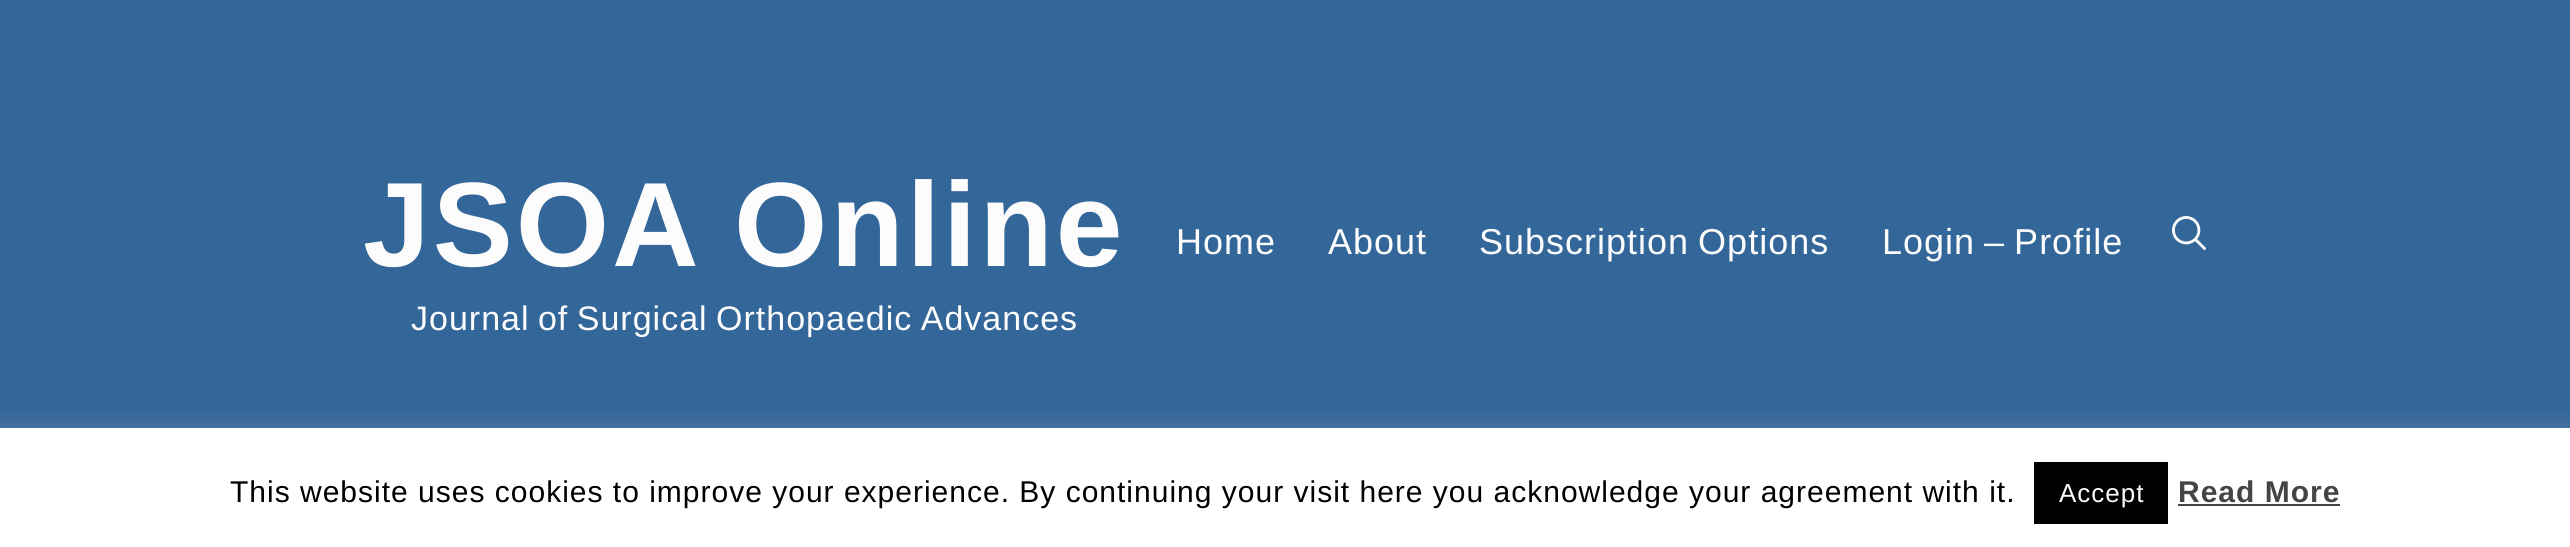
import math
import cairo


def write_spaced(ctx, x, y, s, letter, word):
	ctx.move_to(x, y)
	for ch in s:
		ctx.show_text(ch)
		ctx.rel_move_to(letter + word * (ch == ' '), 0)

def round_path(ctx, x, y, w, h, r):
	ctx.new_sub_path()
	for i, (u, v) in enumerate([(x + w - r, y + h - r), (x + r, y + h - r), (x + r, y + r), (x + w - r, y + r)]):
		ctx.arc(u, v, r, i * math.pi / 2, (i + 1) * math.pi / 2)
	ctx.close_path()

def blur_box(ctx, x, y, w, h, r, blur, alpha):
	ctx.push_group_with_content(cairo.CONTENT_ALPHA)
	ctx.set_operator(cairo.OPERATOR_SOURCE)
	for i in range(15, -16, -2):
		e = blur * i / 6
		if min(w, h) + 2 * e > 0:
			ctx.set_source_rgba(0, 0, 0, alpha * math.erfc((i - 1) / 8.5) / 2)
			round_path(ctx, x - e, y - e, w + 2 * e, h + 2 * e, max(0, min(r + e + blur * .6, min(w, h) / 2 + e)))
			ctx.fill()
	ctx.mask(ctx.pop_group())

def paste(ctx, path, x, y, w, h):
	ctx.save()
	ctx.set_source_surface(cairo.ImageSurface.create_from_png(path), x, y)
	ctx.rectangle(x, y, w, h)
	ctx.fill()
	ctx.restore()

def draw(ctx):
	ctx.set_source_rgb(0.2, 0.4, 0.6)
	ctx.paint()
	ctx.select_font_face('Liberation Sans', cairo.FONT_SLANT_NORMAL, cairo.FONT_WEIGHT_BOLD)
	ctx.set_font_size(120)
	ctx.set_source_rgb(0.988, 0.988, 0.988)
	write_spaced(ctx, 363, 266, 'JSOA Online', 3, -4)
	ctx.select_font_face('Liberation Sans')
	ctx.set_font_size(34)
	write_spaced(ctx, 411, 330, 'Journal of Surgical Orthopaedic Advances', 1, -2)
	ctx.set_font_size(36)
	write_spaced(ctx, 1176, 254, 'Home', 1, 0)
	write_spaced(ctx, 1328, 254, 'About', 1, 0)
	write_spaced(ctx, 1479, 254, 'Subscription Options', 1, -2)
	write_spaced(ctx, 1882, 254, 'Login – Profile', 1, -2)
	paste(ctx, 'media/1.png', 2172, 216, 34, 34)
	ctx.set_source_rgb(0.675, 0.671, 0.671)
	blur_box(ctx, 0, 426, 2570, 120, 0, 10, 0.3)
	ctx.set_source_rgb(1, 1, 1)
	ctx.rectangle(0, 428, 2570, 119)
	ctx.fill()
	ctx.set_font_size(30)
	ctx.set_source_rgb(0, 0, 0)
	write_spaced(ctx, 230, 502, 'This website uses cookies to improve your experience. By continuing your visit here you acknowledge your agreement with it.', 1, 0)
	ctx.rectangle(2034, 462, 134, 62)
	ctx.fill()
	ctx.set_font_size(26)
	ctx.set_source_rgb(0.988, 0.988, 0.988)
	write_spaced(ctx, 2059, 502, 'Accept', 1, 0)
	ctx.select_font_face('Liberation Sans', cairo.FONT_SLANT_NORMAL, cairo.FONT_WEIGHT_BOLD)
	ctx.set_font_size(30)
	ctx.set_source_rgb(0.267, 0.267, 0.267)
	write_spaced(ctx, 2178, 502, 'Read More', 1, 0)
	ctx.rectangle(2178, 504, 162, 2)
	ctx.fill()


surface = cairo.ImageSurface(cairo.FORMAT_RGB24, 2570, 547)
ctx = cairo.Context(surface)
options = cairo.FontOptions()
options.set_hint_metrics(cairo.HINT_METRICS_OFF)
options.set_hint_style(cairo.HINT_STYLE_NONE)
ctx.set_font_options(options)
ctx.set_miter_limit(4)
draw(ctx)
surface.write_to_png('image.png')
